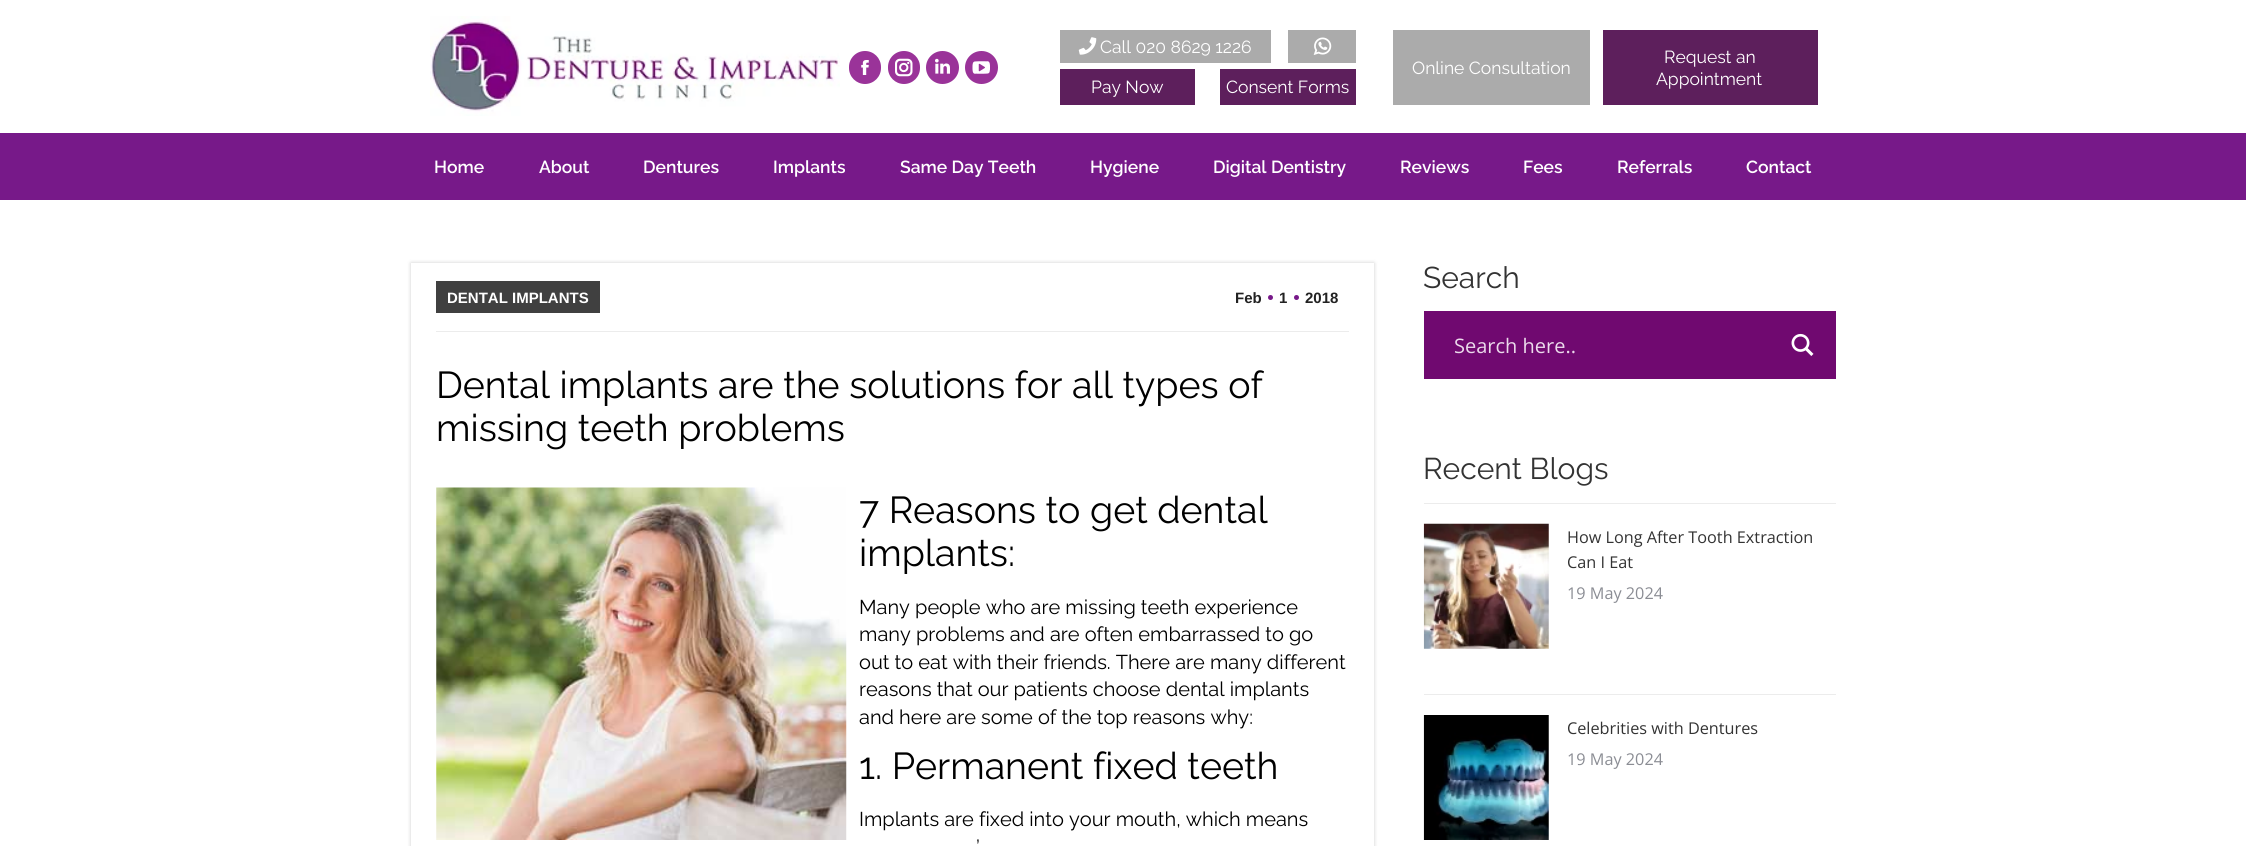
import math
import cairo


def round_path(ctx, x, y, w, h, r):
	ctx.new_sub_path()
	for i, (u, v) in enumerate([(x + w - r, y + h - r), (x + r, y + h - r), (x + r, y + r), (x + w - r, y + r)]):
		ctx.arc(u, v, r, i * math.pi / 2, (i + 1) * math.pi / 2)
	ctx.close_path()

def blur_box(ctx, x, y, w, h, r, blur, alpha):
	ctx.push_group_with_content(cairo.CONTENT_ALPHA)
	ctx.set_operator(cairo.OPERATOR_SOURCE)
	for i in range(15, -16, -2):
		e = blur * i / 6
		if min(w, h) + 2 * e > 0:
			ctx.set_source_rgba(0, 0, 0, alpha * math.erfc((i - 1) / 8.5) / 2)
			round_path(ctx, x - e, y - e, w + 2 * e, h + 2 * e, max(0, min(r + e + blur * .6, min(w, h) / 2 + e)))
			ctx.fill()
	ctx.mask(ctx.pop_group())

def paste(ctx, path, x, y, w, h):
	ctx.save()
	ctx.set_source_surface(cairo.ImageSurface.create_from_png(path), x, y)
	ctx.rectangle(x, y, w, h)
	ctx.fill()
	ctx.restore()

def draw(ctx):
	ctx.set_source_rgb(1, 1, 1)
	ctx.paint()
	paste(ctx, 'media/1.png', 430, 16, 410, 100)
	ctx.set_source_rgb(0.604, 0.2, 0.6)
	round_path(ctx, 849, 51, 32, 33, 16)
	ctx.fill()
	paste(ctx, 'media/2.png', 861, 60, 8, 15)
	round_path(ctx, 888, 51, 32, 33, 16)
	ctx.fill()
	paste(ctx, 'media/3.png', 895, 58, 18, 19)
	ctx.arc(942.5, 67.5, 16.5, 0, 2 * math.pi)
	ctx.fill()
	paste(ctx, 'media/4.png', 935, 58, 15, 16)
	ctx.arc(981.5, 67.5, 16.5, 0, 2 * math.pi)
	ctx.fill()
	paste(ctx, 'media/5.png', 972, 61, 18, 13)
	ctx.set_source_rgb(0.671, 0.671, 0.671)
	ctx.rectangle(1060, 30, 211, 33)
	ctx.fill()
	paste(ctx, 'media/6.png', 1078, 37, 19, 18)
	ctx.select_font_face('Raleway')
	ctx.set_font_size(17.5)
	ctx.set_source_rgb(1, 1, 1)
	ctx.move_to(1100, 53)
	ctx.show_text('Call 020 8629 1226')
	ctx.set_source_rgb(0.671, 0.671, 0.671)
	ctx.rectangle(1288, 30, 68, 33)
	ctx.fill()
	paste(ctx, 'media/7.png', 1313, 37, 19, 18)
	ctx.set_source_rgb(0.365, 0.122, 0.361)
	ctx.rectangle(1060, 69, 135, 36)
	ctx.fill()
	ctx.set_source_rgb(1, 1, 1)
	ctx.move_to(1091, 93)
	ctx.show_text('Pay Now')
	ctx.set_source_rgb(0.365, 0.122, 0.361)
	ctx.rectangle(1220, 69, 136, 36)
	ctx.fill()
	ctx.set_source_rgb(1, 1, 1)
	ctx.move_to(1226, 93)
	ctx.show_text('Consent Forms')
	ctx.set_source_rgb(0.671, 0.671, 0.671)
	ctx.rectangle(1393, 30, 197, 75)
	ctx.fill()
	ctx.set_source_rgb(1, 1, 1)
	ctx.move_to(1412, 74)
	ctx.show_text('Online Consultation')
	ctx.set_source_rgb(0.365, 0.122, 0.361)
	ctx.rectangle(1603, 30, 215, 75)
	ctx.fill()
	ctx.set_source_rgb(1, 1, 1)
	ctx.move_to(1664, 63)
	ctx.show_text('Request an')
	ctx.move_to(1656, 85)
	ctx.show_text('Appointment')
	ctx.set_source_rgb(0.467, 0.098, 0.537)
	ctx.rectangle(0, 133, 2246, 67)
	ctx.fill()
	ctx.select_font_face('Raleway SemiBold')
	ctx.set_source_rgb(1, 1, 1)
	for x, y, s in [
		(434, 173, 'Home'),
		(539, 173, 'About'),
		(643, 173, 'Dentures'),
		(773, 173, 'Implants'),
		(900, 173, 'Same Day Teeth'),
		(1090, 173, 'Hygiene'),
		(1213, 173, 'Digital Dentistry'),
		(1400, 173, 'Reviews'),
		(1523, 173, 'Fees'),
		(1617, 173, 'Referrals'),
		(1746, 173, 'Contact'),
	]:
		ctx.move_to(x, y)
		ctx.show_text(s)
	ctx.save()
	ctx.set_fill_rule(cairo.FILL_RULE_EVEN_ODD)
	ctx.new_path()
	ctx.move_to(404, 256)
	ctx.line_to(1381, 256)
	ctx.line_to(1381, 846)
	ctx.line_to(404, 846)
	ctx.close_path()
	ctx.move_to(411, 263)
	ctx.line_to(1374, 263)
	ctx.line_to(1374, 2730)
	ctx.line_to(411, 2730)
	ctx.close_path()
	ctx.clip()
	ctx.set_source_rgb(0, 0, 0)
	blur_box(ctx, 411, 263, 963, 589, 0, 2, 0.2)
	ctx.restore()
	ctx.set_source_rgb(0.922, 0.922, 0.922)
	ctx.rectangle(436, 331, 913, 1)
	ctx.fill()
	ctx.set_source_rgb(0.251, 0.251, 0.251)
	ctx.rectangle(436, 281, 164, 32)
	ctx.fill()
	ctx.select_font_face('Liberation Sans', cairo.FONT_SLANT_NORMAL, cairo.FONT_WEIGHT_BOLD)
	ctx.set_font_size(15)
	ctx.set_source_rgb(1, 1, 1)
	ctx.move_to(447, 303)
	ctx.show_text('DENTAL IMPLANTS')
	ctx.set_source_rgb(0.133, 0.133, 0.133)
	ctx.move_to(1235, 303)
	ctx.show_text('Feb')
	ctx.set_source_rgb(0.467, 0.098, 0.537)
	ctx.new_path()
	ctx.arc(1270.5, 297.5, 2.5, 0, 2 * math.pi)
	ctx.fill()
	ctx.set_source_rgb(0.133, 0.133, 0.133)
	ctx.move_to(1279, 303)
	ctx.show_text('1')
	ctx.set_source_rgb(0.467, 0.098, 0.537)
	ctx.new_path()
	ctx.arc(1296.5, 297.5, 2.5, 0, 2 * math.pi)
	ctx.fill()
	ctx.set_source_rgb(0.133, 0.133, 0.133)
	ctx.move_to(1305, 303)
	ctx.show_text('2018')
	ctx.select_font_face('Raleway')
	ctx.set_font_size(37.5)
	ctx.set_source_rgb(0, 0, 0)
	ctx.move_to(436, 398)
	ctx.show_text('Dental implants are the solutions for all types of')
	ctx.move_to(436, 441)
	ctx.show_text('missing teeth problems')
	paste(ctx, 'media/8.png', 436, 487, 411, 353)
	ctx.move_to(859, 523)
	ctx.show_text('7 Reasons to get dental')
	ctx.move_to(859, 566)
	ctx.show_text('implants:')
	ctx.set_font_size(20)
	for x, y, s in [
		(859, 614, 'Many people who are missing teeth experience'),
		(859, 641, 'many problems and are often embarrassed to go'),
		(859, 669, 'out to eat with their friends. There are many different'),
		(859, 696, 'reasons that our patients choose dental implants'),
		(859, 724, 'and here are some of the top reasons why:'),
	]:
		ctx.move_to(x, y)
		ctx.show_text(s)
	ctx.set_font_size(37.5)
	ctx.move_to(859, 779)
	ctx.show_text('1. Permanent fixed teeth')
	ctx.set_font_size(20)
	ctx.move_to(859, 826)
	ctx.show_text('Implants are fixed into your mouth, which means')
	ctx.move_to(976, 854)
	ctx.show_text('’')
	ctx.set_font_size(30)
	ctx.set_source_rgb(0.2, 0.2, 0.2)
	ctx.move_to(1423, 288)
	ctx.show_text('Search')
	ctx.set_source_rgb(0.439, 0.039, 0.439)
	ctx.rectangle(1424, 311, 412, 68)
	ctx.fill()
	ctx.select_font_face('Open Sans')
	ctx.set_font_size(20)
	ctx.set_source_rgb(0.918, 0.855, 0.918)
	ctx.move_to(1454, 353)
	ctx.show_text('Search here..')
	paste(ctx, 'media/9.png', 1791, 333, 23, 23)
	ctx.select_font_face('Raleway')
	ctx.set_font_size(30)
	ctx.set_source_rgb(0.2, 0.2, 0.2)
	ctx.move_to(1423, 479)
	ctx.show_text('Recent Blogs')
	ctx.set_source_rgb(0.922, 0.922, 0.922)
	ctx.rectangle(1424, 503, 412, 1)
	ctx.fill()
	paste(ctx, 'media/10.png', 1423, 523, 126, 126)
	ctx.select_font_face('Open Sans')
	ctx.set_font_size(16.25)
	ctx.set_source_rgb(0.2, 0.2, 0.2)
	ctx.move_to(1567, 543)
	ctx.show_text('How Long After Tooth Extraction')
	ctx.move_to(1567, 568)
	ctx.show_text('Can I Eat')
	ctx.set_source_rgb(0.545, 0.553, 0.58)
	ctx.move_to(1567, 599)
	ctx.show_text('19 May 2024')
	ctx.set_source_rgb(0.922, 0.922, 0.922)
	ctx.rectangle(1424, 694, 412, 1)
	ctx.fill()
	paste(ctx, 'media/11.png', 1423, 715, 126, 125)
	ctx.set_source_rgb(0.2, 0.2, 0.2)
	ctx.move_to(1567, 734)
	ctx.show_text('Celebrities with Dentures')
	ctx.set_source_rgb(0.545, 0.553, 0.58)
	ctx.move_to(1567, 765)
	ctx.show_text('19 May 2024')


surface = cairo.ImageSurface(cairo.FORMAT_RGB24, 2246, 846)
ctx = cairo.Context(surface)
options = cairo.FontOptions()
options.set_hint_metrics(cairo.HINT_METRICS_OFF)
options.set_hint_style(cairo.HINT_STYLE_NONE)
ctx.set_font_options(options)
ctx.set_miter_limit(4)
draw(ctx)
surface.write_to_png('image.png')
